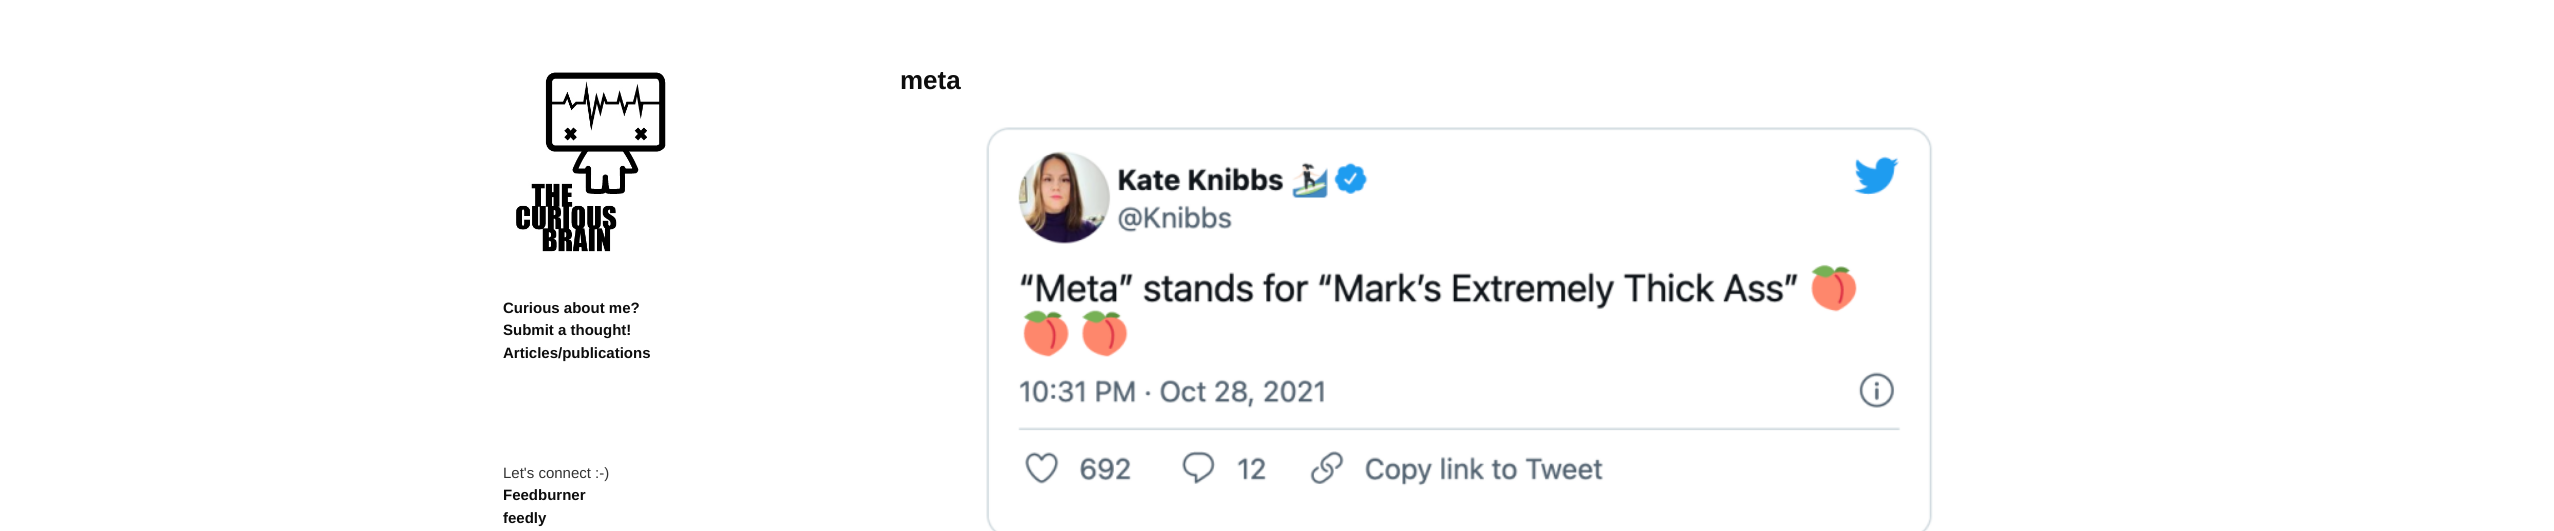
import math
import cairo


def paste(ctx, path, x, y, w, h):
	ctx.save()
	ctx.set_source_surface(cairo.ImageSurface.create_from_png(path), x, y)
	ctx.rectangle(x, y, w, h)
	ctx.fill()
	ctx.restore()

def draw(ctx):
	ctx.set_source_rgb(1, 1, 1)
	ctx.paint()
	ctx.select_font_face('Liberation Sans', cairo.FONT_SLANT_NORMAL, cairo.FONT_WEIGHT_BOLD)
	ctx.set_font_size(26)
	ctx.set_source_rgb(0.051, 0.051, 0.051)
	ctx.move_to(900, 89)
	ctx.show_text('meta')
	paste(ctx, 'media/1.png', 986, 127, 947, 404)
	paste(ctx, 'media/2.png', 516, 72, 150, 180)
	ctx.set_font_size(15)
	for x, y, s in [
		(503, 313, 'Curious about me?'),
		(503, 335, 'Submit a thought!'),
		(503, 358, 'Articles/publications'),
	]:
		ctx.move_to(x, y)
		ctx.show_text(s)
	ctx.select_font_face('Liberation Sans')
	ctx.set_source_rgb(0.2, 0.2, 0.2)
	ctx.move_to(503, 478)
	ctx.show_text('Let\'s connect :-)')
	ctx.select_font_face('Liberation Sans', cairo.FONT_SLANT_NORMAL, cairo.FONT_WEIGHT_BOLD)
	ctx.set_source_rgb(0.051, 0.051, 0.051)
	ctx.move_to(503, 500)
	ctx.show_text('Feedburner')
	ctx.move_to(503, 523)
	ctx.show_text('feedly')


surface = cairo.ImageSurface(cairo.FORMAT_RGB24, 2554, 531)
ctx = cairo.Context(surface)
options = cairo.FontOptions()
options.set_hint_metrics(cairo.HINT_METRICS_OFF)
options.set_hint_style(cairo.HINT_STYLE_NONE)
ctx.set_font_options(options)
ctx.set_miter_limit(4)
draw(ctx)
surface.write_to_png('image.png')
